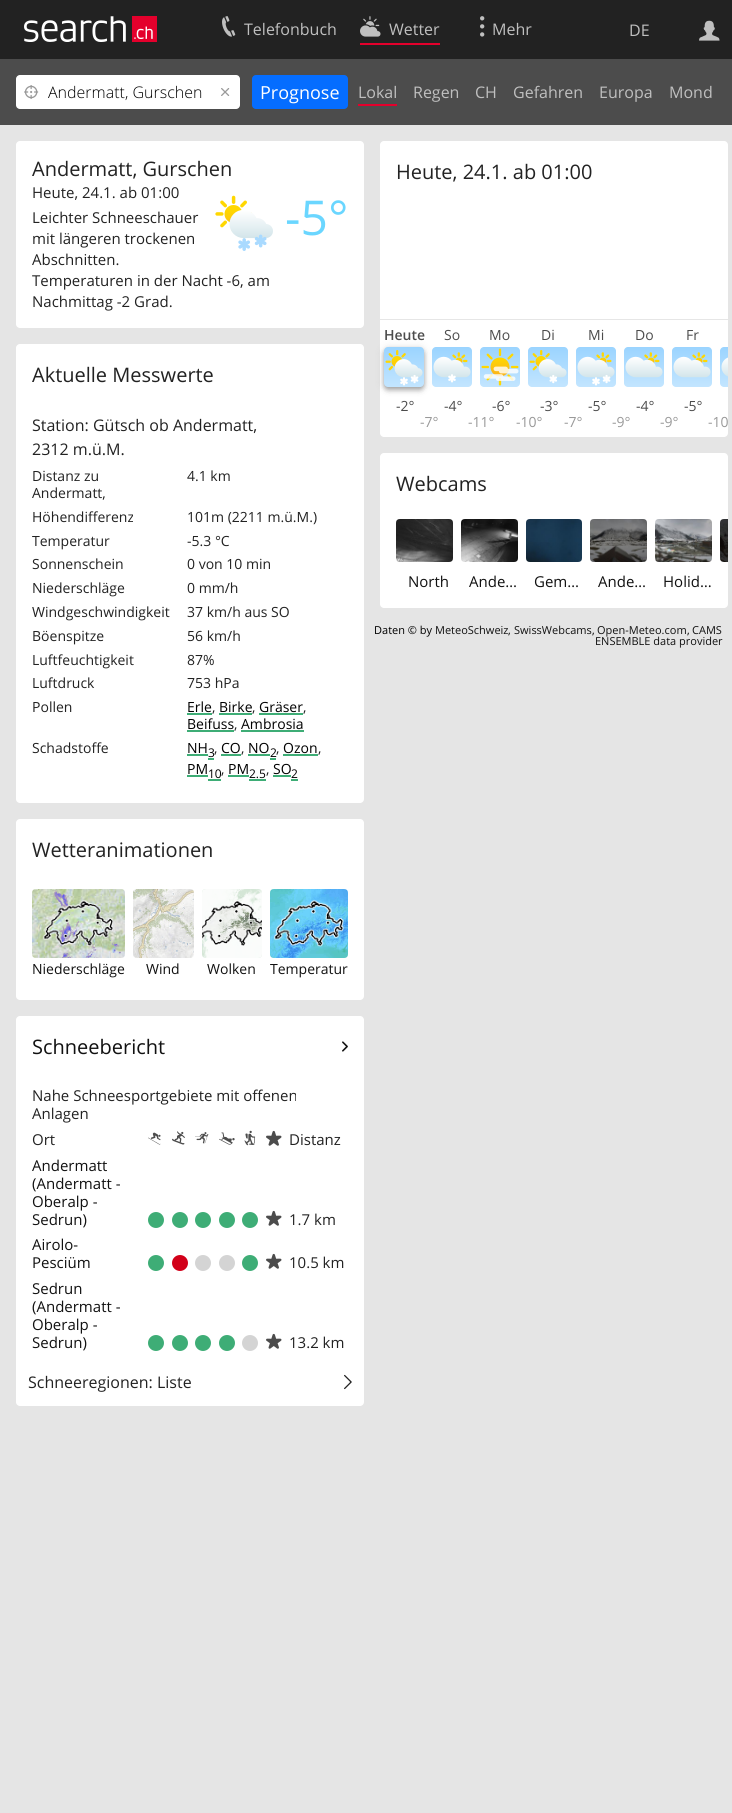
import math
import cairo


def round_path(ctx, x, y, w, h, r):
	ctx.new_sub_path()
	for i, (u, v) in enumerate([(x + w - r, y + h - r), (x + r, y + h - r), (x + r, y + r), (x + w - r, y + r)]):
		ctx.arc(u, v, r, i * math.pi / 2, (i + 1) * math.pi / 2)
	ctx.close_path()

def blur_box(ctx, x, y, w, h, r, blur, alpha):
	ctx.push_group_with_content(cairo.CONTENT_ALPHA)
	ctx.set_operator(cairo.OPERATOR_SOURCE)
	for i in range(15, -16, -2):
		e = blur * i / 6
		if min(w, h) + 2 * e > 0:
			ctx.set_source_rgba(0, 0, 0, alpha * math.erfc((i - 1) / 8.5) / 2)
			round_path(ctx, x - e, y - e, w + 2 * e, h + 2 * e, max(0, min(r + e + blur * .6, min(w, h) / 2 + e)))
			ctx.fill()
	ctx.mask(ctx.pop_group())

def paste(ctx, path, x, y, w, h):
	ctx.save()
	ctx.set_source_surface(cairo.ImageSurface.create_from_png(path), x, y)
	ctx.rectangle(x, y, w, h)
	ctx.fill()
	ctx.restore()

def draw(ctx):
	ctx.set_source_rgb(0.898, 0.898, 0.898)
	ctx.paint()
	ctx.set_source_rgb(0.133, 0.133, 0.133)
	ctx.rectangle(0, 0, 732, 59)
	ctx.fill()
	paste(ctx, 'media/1.png', 24, 16, 133, 26)
	paste(ctx, 'media/2.png', 222, 16, 14, 21)
	ctx.select_font_face('Open Sans')
	ctx.set_font_size(16)
	ctx.set_source_rgb(0.749, 0.749, 0.749)
	ctx.move_to(244, 35)
	ctx.show_text('Telefonbuch')
	ctx.set_source_rgb(0.894, 0, 0.173)
	ctx.rectangle(360, 43, 80, 2)
	ctx.fill()
	paste(ctx, 'media/3.png', 360, 16, 21, 21)
	ctx.set_source_rgb(0.749, 0.749, 0.749)
	ctx.move_to(389, 35)
	ctx.show_text('Wetter')
	paste(ctx, 'media/4.png', 480, 16, 5, 21)
	ctx.move_to(492, 35)
	ctx.show_text('Mehr')
	ctx.move_to(629, 36)
	ctx.show_text('DE')
	paste(ctx, 'media/5.png', 699, 20, 21, 21)
	ctx.set_source_rgb(0.298, 0.298, 0.298)
	ctx.rectangle(0, 59, 732, 66)
	ctx.fill()
	ctx.set_source_rgb(1, 1, 1)
	round_path(ctx, 16, 75, 224, 34, 4)
	ctx.fill()
	paste(ctx, 'media/6.png', 24, 85, 15, 14)
	ctx.select_font_face('Open Sans Light')
	ctx.set_source_rgb(0, 0, 0)
	ctx.move_to(48, 98)
	ctx.show_text('Andermatt, Gurschen')
	paste(ctx, 'media/7.png', 221, 88, 9, 8)
	ctx.set_source_rgb(0.02, 0.427, 1)
	round_path(ctx, 252, 75, 96, 34, 4)
	ctx.fill()
	ctx.select_font_face('Open Sans')
	ctx.set_font_size(18)
	ctx.set_source_rgb(1, 1, 1)
	ctx.move_to(260, 99)
	ctx.show_text('Prognose')
	ctx.set_source_rgb(0.894, 0, 0.173)
	ctx.rectangle(358, 104, 39, 2)
	ctx.fill()
	ctx.set_font_size(16)
	ctx.set_source_rgb(0.749, 0.749, 0.749)
	for x, y, s in [
		(358, 98, 'Lokal'),
		(413, 98, 'Regen'),
		(475, 98, 'CH'),
		(513, 98, 'Gefahren'),
		(599, 98, 'Europa'),
		(669, 98, 'Mond'),
	]:
		ctx.move_to(x, y)
		ctx.show_text(s)
	ctx.set_source_rgb(1, 1, 1)
	round_path(ctx, 16, 141, 348, 187, 4)
	ctx.fill()
	ctx.set_font_size(20)
	ctx.set_source_rgb(0.133, 0.133, 0.133)
	ctx.move_to(32, 176)
	ctx.show_text('Andermatt, Gurschen')
	ctx.set_font_size(15)
	for x, y, s in [
		(32, 198, 'Heute, 24.1. ab 01:00'),
		(32, 223, 'Leichter Schneeschauer'),
		(32, 244, 'mit längeren trockenen'),
		(32, 265, 'Abschnitten.'),
		(32, 286, 'Temperaturen in der Nacht -6, am'),
		(32, 307, 'Nachmittag -2 Grad.'),
	]:
		ctx.move_to(x, y)
		ctx.show_text(s)
	paste(ctx, 'media/8.png', 215, 195, 58, 56)
	ctx.set_font_size(48)
	ctx.set_source_rgb(0.416, 0.839, 1)
	ctx.move_to(285, 235)
	ctx.show_text('-5°')
	ctx.set_source_rgb(1, 1, 1)
	round_path(ctx, 16, 344, 348, 459, 4)
	ctx.fill()
	ctx.set_font_size(20)
	ctx.set_source_rgb(0.133, 0.133, 0.133)
	ctx.move_to(32, 382)
	ctx.show_text('Aktuelle Messwerte')
	ctx.set_font_size(16)
	ctx.move_to(32, 431)
	ctx.show_text('Station: Gütsch ob Andermatt,')
	ctx.move_to(32, 455)
	ctx.show_text('2312 m.ü.M.')
	ctx.set_font_size(14)
	for x, y, s in [
		(32, 481, 'Distanz zu'),
		(32, 498, 'Andermatt,'),
		(187, 481, '4.1 km'),
		(32, 522, 'Höhendifferenz'),
		(187, 522, '101m (2211 m.ü.M.)'),
		(32, 546, 'Temperatur'),
		(187, 546, '-5.3 °C'),
		(32, 569, 'Sonnenschein'),
		(187, 569, '0 von 10 min'),
		(32, 593, 'Niederschläge'),
		(187, 593, '0 mm/h'),
		(32, 617, 'Windgeschwindigkeit'),
		(187, 617, '37 km/h aus SO'),
		(32, 641, 'Böenspitze'),
		(187, 641, '56 km/h'),
		(32, 665, 'Luftfeuchtigkeit'),
		(187, 665, '87%'),
		(32, 688, 'Luftdruck'),
		(187, 688, '753 hPa'),
		(32, 712, 'Pollen'),
	]:
		ctx.move_to(x, y)
		ctx.show_text(s)
	ctx.set_source_rgb(0, 0, 0)
	ctx.move_to(187, 712)
	ctx.show_text('Erle')
	ctx.set_source_rgb(0.243, 0.678, 0.463)
	ctx.rectangle(187, 713, 25, 2)
	ctx.fill()
	ctx.set_source_rgb(0.133, 0.133, 0.133)
	ctx.move_to(212, 712)
	ctx.show_text(',')
	ctx.set_source_rgb(0, 0, 0)
	ctx.move_to(219, 712)
	ctx.show_text('Birke')
	ctx.set_source_rgb(0.243, 0.678, 0.463)
	ctx.rectangle(219, 713, 33, 2)
	ctx.fill()
	ctx.set_source_rgb(0.133, 0.133, 0.133)
	ctx.move_to(252, 712)
	ctx.show_text(',')
	ctx.set_source_rgb(0, 0, 0)
	ctx.move_to(259, 712)
	ctx.show_text('Gräser')
	ctx.set_source_rgb(0.243, 0.678, 0.463)
	ctx.rectangle(259, 713, 44, 2)
	ctx.fill()
	ctx.set_source_rgb(0.133, 0.133, 0.133)
	ctx.move_to(303, 712)
	ctx.show_text(',')
	ctx.set_source_rgb(0, 0, 0)
	ctx.move_to(187, 729)
	ctx.show_text('Beifuss')
	ctx.set_source_rgb(0.243, 0.678, 0.463)
	ctx.rectangle(187, 730, 47, 2)
	ctx.fill()
	ctx.set_source_rgb(0.133, 0.133, 0.133)
	ctx.move_to(234, 729)
	ctx.show_text(',')
	ctx.set_source_rgb(0, 0, 0)
	ctx.move_to(241, 729)
	ctx.show_text('Ambrosia')
	ctx.set_source_rgb(0.243, 0.678, 0.463)
	ctx.rectangle(241, 730, 63, 2)
	ctx.fill()
	ctx.set_source_rgb(0.133, 0.133, 0.133)
	ctx.move_to(32, 753)
	ctx.show_text('Schadstoffe')
	ctx.set_source_rgb(0, 0, 0)
	ctx.move_to(187, 753)
	ctx.show_text('NH')
	ctx.set_font_size(12)
	ctx.move_to(208, 757)
	ctx.show_text('3')
	ctx.set_source_rgb(0.243, 0.678, 0.463)
	ctx.rectangle(187, 754, 21, 2)
	ctx.fill()
	ctx.rectangle(208, 758, 6, 2)
	ctx.fill()
	ctx.set_font_size(14)
	ctx.set_source_rgb(0.133, 0.133, 0.133)
	ctx.move_to(214, 753)
	ctx.show_text(',')
	ctx.set_source_rgb(0, 0, 0)
	ctx.move_to(221, 753)
	ctx.show_text('CO')
	ctx.set_source_rgb(0.243, 0.678, 0.463)
	ctx.rectangle(221, 754, 20, 2)
	ctx.fill()
	ctx.set_source_rgb(0.133, 0.133, 0.133)
	ctx.move_to(241, 753)
	ctx.show_text(',')
	ctx.set_source_rgb(0, 0, 0)
	ctx.move_to(248, 753)
	ctx.show_text('NO')
	ctx.set_font_size(12)
	ctx.move_to(270, 757)
	ctx.show_text('2')
	ctx.set_source_rgb(0.243, 0.678, 0.463)
	ctx.rectangle(248, 754, 22, 2)
	ctx.fill()
	ctx.rectangle(270, 758, 6, 2)
	ctx.fill()
	ctx.set_font_size(14)
	ctx.set_source_rgb(0.133, 0.133, 0.133)
	ctx.move_to(276, 753)
	ctx.show_text(',')
	ctx.set_source_rgb(0, 0, 0)
	ctx.move_to(283, 753)
	ctx.show_text('Ozon')
	ctx.set_source_rgb(0.243, 0.678, 0.463)
	ctx.rectangle(283, 754, 35, 2)
	ctx.fill()
	ctx.set_source_rgb(0.133, 0.133, 0.133)
	ctx.move_to(318, 753)
	ctx.show_text(',')
	ctx.set_source_rgb(0, 0, 0)
	ctx.move_to(187, 774)
	ctx.show_text('PM')
	ctx.set_font_size(12)
	ctx.move_to(208, 778)
	ctx.show_text('10')
	ctx.set_source_rgb(0.243, 0.678, 0.463)
	ctx.rectangle(187, 775, 21, 2)
	ctx.fill()
	ctx.rectangle(208, 779, 13, 2)
	ctx.fill()
	ctx.set_font_size(14)
	ctx.set_source_rgb(0.133, 0.133, 0.133)
	ctx.move_to(221, 774)
	ctx.show_text(',')
	ctx.set_source_rgb(0, 0, 0)
	ctx.move_to(228, 774)
	ctx.show_text('PM')
	ctx.set_font_size(12)
	ctx.move_to(249, 778)
	ctx.show_text('2.5')
	ctx.set_source_rgb(0.243, 0.678, 0.463)
	ctx.rectangle(228, 775, 21, 2)
	ctx.fill()
	ctx.rectangle(249, 779, 17, 2)
	ctx.fill()
	ctx.set_font_size(14)
	ctx.set_source_rgb(0.133, 0.133, 0.133)
	ctx.move_to(266, 774)
	ctx.show_text(',')
	ctx.set_source_rgb(0, 0, 0)
	ctx.move_to(273, 774)
	ctx.show_text('SO')
	ctx.set_font_size(12)
	ctx.move_to(291, 778)
	ctx.show_text('2')
	ctx.set_source_rgb(0.243, 0.678, 0.463)
	ctx.rectangle(273, 775, 18, 2)
	ctx.fill()
	ctx.rectangle(291, 779, 7, 2)
	ctx.fill()
	ctx.set_source_rgb(1, 1, 1)
	round_path(ctx, 16, 819, 348, 181, 4)
	ctx.fill()
	ctx.set_font_size(20)
	ctx.set_source_rgb(0.133, 0.133, 0.133)
	ctx.move_to(32, 857)
	ctx.show_text('Wetteranimationen')
	paste(ctx, 'media/9.png', 32, 889, 93, 69)
	paste(ctx, 'media/10.png', 52, 889, 73, 69)
	paste(ctx, 'media/11.png', 43, 900, 71, 47)
	ctx.set_font_size(14)
	ctx.set_source_rgb(0.067, 0.067, 0.067)
	ctx.move_to(32, 974)
	ctx.show_text('Niederschläge')
	paste(ctx, 'media/12.png', 133, 889, 61, 69)
	ctx.move_to(146, 974)
	ctx.show_text('Wind')
	paste(ctx, 'media/13.png', 202, 889, 60, 69)
	paste(ctx, 'media/14.png', 202, 889, 60, 69)
	paste(ctx, 'media/15.png', 202, 900, 60, 46)
	ctx.move_to(207, 974)
	ctx.show_text('Wolken')
	paste(ctx, 'media/16.png', 270, 889, 78, 69)
	paste(ctx, 'media/17.png', 273, 900, 71, 47)
	ctx.move_to(270, 974)
	ctx.show_text('Temperatur')
	ctx.set_source_rgb(1, 1, 1)
	round_path(ctx, 16, 1016, 348, 390, 4)
	ctx.fill()
	ctx.set_font_size(20)
	ctx.set_source_rgb(0.067, 0.067, 0.067)
	ctx.move_to(32, 1054)
	ctx.show_text('Schneebericht')
	paste(ctx, 'media/18.png', 342, 1041, 6, 11)
	ctx.set_font_size(15)
	ctx.set_source_rgb(0.133, 0.133, 0.133)
	for x, y, s in [
		(32, 1101, 'Nahe Schneesportgebiete mit offenen'),
		(32, 1119, 'Anlagen'),
		(32, 1145, 'Ort'),
	]:
		ctx.move_to(x, y)
		ctx.show_text(s)
	paste(ctx, 'media/19.png', 148, 1132, 13, 13)
	paste(ctx, 'media/20.png', 172, 1131, 13, 14)
	paste(ctx, 'media/21.png', 195, 1132, 14, 12)
	paste(ctx, 'media/22.png', 219, 1132, 16, 13)
	paste(ctx, 'media/23.png', 244, 1130, 12, 16)
	paste(ctx, 'media/24.png', 266, 1130, 16, 16)
	ctx.move_to(289, 1145)
	ctx.show_text('Distanz')
	ctx.set_source_rgb(0.067, 0.067, 0.067)
	for x, y, s in [
		(32, 1171, 'Andermatt'),
		(32, 1189, '(Andermatt -'),
		(32, 1207, 'Oberalp -'),
		(32, 1225, 'Sedrun)'),
	]:
		ctx.move_to(x, y)
		ctx.show_text(s)
	ctx.set_source_rgb(0.243, 0.678, 0.463)
	ctx.new_path()
	ctx.arc(156, 1220, 8, 0, 2 * math.pi)
	ctx.fill()
	ctx.arc(180, 1220, 8, 0, 2 * math.pi)
	ctx.fill()
	ctx.arc(203, 1220, 8, 0, 2 * math.pi)
	ctx.fill()
	ctx.arc(227, 1220, 8, 0, 2 * math.pi)
	ctx.fill()
	ctx.arc(250, 1220, 8, 0, 2 * math.pi)
	ctx.fill()
	paste(ctx, 'media/24.png', 266, 1210, 16, 16)
	ctx.set_source_rgb(0.133, 0.133, 0.133)
	ctx.move_to(289, 1225)
	ctx.show_text('1.7 km')
	ctx.set_source_rgb(0.067, 0.067, 0.067)
	ctx.move_to(32, 1250)
	ctx.show_text('Airolo-')
	ctx.move_to(32, 1268)
	ctx.show_text('Pesciüm')
	ctx.set_source_rgb(0.243, 0.678, 0.463)
	ctx.new_path()
	ctx.arc(156, 1263, 8, 0, 2 * math.pi)
	ctx.fill()
	ctx.set_source_rgb(0.824, 0, 0.098)
	ctx.arc(180, 1263, 8, 0, 2 * math.pi)
	ctx.fill()
	ctx.set_source_rgb(0.831, 0.831, 0.831)
	ctx.arc(203, 1263, 8, 0, 2 * math.pi)
	ctx.fill()
	ctx.arc(227, 1263, 8, 0, 2 * math.pi)
	ctx.fill()
	ctx.set_source_rgb(0.243, 0.678, 0.463)
	ctx.arc(250, 1263, 8, 0, 2 * math.pi)
	ctx.fill()
	paste(ctx, 'media/24.png', 266, 1253, 16, 16)
	ctx.set_source_rgb(0.133, 0.133, 0.133)
	ctx.move_to(289, 1268)
	ctx.show_text('10.5 km')
	ctx.set_source_rgb(0.067, 0.067, 0.067)
	for x, y, s in [
		(32, 1294, 'Sedrun'),
		(32, 1312, '(Andermatt -'),
		(32, 1330, 'Oberalp -'),
		(32, 1348, 'Sedrun)'),
	]:
		ctx.move_to(x, y)
		ctx.show_text(s)
	ctx.set_source_rgb(0.243, 0.678, 0.463)
	ctx.new_path()
	ctx.arc(156, 1343, 8, 0, 2 * math.pi)
	ctx.fill()
	ctx.arc(180, 1343, 8, 0, 2 * math.pi)
	ctx.fill()
	ctx.arc(203, 1343, 8, 0, 2 * math.pi)
	ctx.fill()
	ctx.arc(227, 1343, 8, 0, 2 * math.pi)
	ctx.fill()
	ctx.set_source_rgb(0.831, 0.831, 0.831)
	ctx.arc(250, 1343, 8, 0, 2 * math.pi)
	ctx.fill()
	paste(ctx, 'media/24.png', 266, 1333, 16, 16)
	ctx.set_source_rgb(0.133, 0.133, 0.133)
	ctx.move_to(289, 1348)
	ctx.show_text('13.2 km')
	ctx.set_font_size(16)
	ctx.move_to(28, 1388)
	ctx.show_text('Schneeregionen: Liste')
	paste(ctx, 'media/25.png', 344, 1374, 8, 16)
	ctx.set_source_rgb(1, 1, 1)
	round_path(ctx, 380, 141, 348, 296, 4)
	ctx.fill()
	ctx.set_font_size(20)
	ctx.set_source_rgb(0.133, 0.133, 0.133)
	ctx.move_to(396, 179)
	ctx.show_text('Heute, 24.1. ab 01:00')
	ctx.set_source_rgb(0.902, 0.902, 0.902)
	ctx.rectangle(380, 319, 348, 1)
	ctx.fill()
	ctx.select_font_face('Open Sans SemiBold')
	ctx.set_font_size(14)
	ctx.set_source_rgb(0.298, 0.298, 0.298)
	ctx.move_to(384, 340)
	ctx.show_text('Heute')
	ctx.set_source_rgb(0, 0, 0)
	blur_box(ctx, 384, 349, 40, 40, 4, 2, 0.2)
	blur_box(ctx, 384, 348, 40, 40, 4, 5, 0.12)
	blur_box(ctx, 384, 351, 40, 40, 4, 2.5, 0.14)
	paste(ctx, 'media/26.png', 384, 347, 40, 40)
	ctx.select_font_face('Open Sans')
	ctx.set_source_rgb(0.298, 0.298, 0.298)
	ctx.move_to(444, 340)
	ctx.show_text('So')
	paste(ctx, 'media/27.png', 432, 347, 40, 40)
	ctx.move_to(489, 340)
	ctx.show_text('Mo')
	paste(ctx, 'media/28.png', 480, 347, 40, 40)
	ctx.move_to(541, 340)
	ctx.show_text('Di')
	paste(ctx, 'media/29.png', 528, 347, 40, 40)
	ctx.move_to(588, 340)
	ctx.show_text('Mi')
	paste(ctx, 'media/30.png', 576, 347, 40, 40)
	ctx.move_to(635, 340)
	ctx.show_text('Do')
	paste(ctx, 'media/31.png', 624, 347, 40, 40)
	ctx.move_to(686, 340)
	ctx.show_text('Fr')
	paste(ctx, 'media/31.png', 672, 347, 40, 40)
	paste(ctx, 'media/32.png', 720, 347, 8, 40)
	for x, y, s in [
		(396, 411, '-2°'),
		(444, 411, '-4°'),
		(492, 411, '-6°'),
		(540, 411, '-3°'),
		(588, 411, '-5°'),
		(636, 411, '-4°'),
		(684, 411, '-5°'),
	]:
		ctx.move_to(x, y)
		ctx.show_text(s)
	ctx.set_source_rgb(0.6, 0.6, 0.6)
	for x, y, s in [
		(420, 427, '-7°'),
		(468, 427, '-11°'),
		(516, 427, '-10°'),
		(564, 427, '-7°'),
		(612, 427, '-9°'),
		(660, 427, '-9°'),
		(708, 427, '-10'),
	]:
		ctx.move_to(x, y)
		ctx.show_text(s)
	ctx.set_source_rgb(1, 1, 1)
	round_path(ctx, 380, 453, 348, 155, 4)
	ctx.fill()
	ctx.set_font_size(20)
	ctx.set_source_rgb(0.133, 0.133, 0.133)
	ctx.move_to(396, 491)
	ctx.show_text('Webcams')
	paste(ctx, 'media/33.png', 720, 519, 8, 43)
	paste(ctx, 'media/34.png', 396, 519, 57, 43)
	ctx.set_font_size(15)
	ctx.set_source_rgb(0.067, 0.067, 0.067)
	ctx.move_to(408, 587)
	ctx.show_text('North')
	paste(ctx, 'media/35.png', 461, 519, 57, 43)
	ctx.move_to(469, 587)
	ctx.show_text('Ande…')
	paste(ctx, 'media/36.png', 526, 519, 56, 43)
	ctx.move_to(534, 587)
	ctx.show_text('Gem…')
	paste(ctx, 'media/37.png', 590, 519, 57, 43)
	ctx.move_to(598, 587)
	ctx.show_text('Ande…')
	paste(ctx, 'media/38.png', 655, 519, 57, 43)
	ctx.move_to(663, 587)
	ctx.show_text('Holid…')
	ctx.set_font_size(11)
	ctx.set_source_rgb(0, 0, 0)
	ctx.move_to(374, 634)
	ctx.show_text('Daten © by')
	ctx.set_source_rgb(0.067, 0.067, 0.067)
	ctx.move_to(435, 634)
	ctx.show_text('MeteoSchweiz')
	ctx.set_source_rgb(0, 0, 0)
	ctx.move_to(508, 634)
	ctx.show_text(',')
	ctx.set_source_rgb(0.067, 0.067, 0.067)
	ctx.move_to(514, 634)
	ctx.show_text('SwissWebcams')
	ctx.set_source_rgb(0, 0, 0)
	ctx.move_to(592, 634)
	ctx.show_text(',')
	ctx.set_source_rgb(0.067, 0.067, 0.067)
	ctx.move_to(597, 634)
	ctx.show_text('Open-Meteo.com')
	ctx.set_source_rgb(0, 0, 0)
	ctx.move_to(687, 634)
	ctx.show_text(',')
	ctx.set_source_rgb(0.067, 0.067, 0.067)
	ctx.move_to(692, 634)
	ctx.show_text('CAMS')
	ctx.move_to(595, 645)
	ctx.show_text('ENSEMBLE data provider')


surface = cairo.ImageSurface(cairo.FORMAT_RGB24, 732, 1813)
ctx = cairo.Context(surface)
options = cairo.FontOptions()
options.set_hint_metrics(cairo.HINT_METRICS_OFF)
options.set_hint_style(cairo.HINT_STYLE_NONE)
ctx.set_font_options(options)
ctx.set_miter_limit(4)
draw(ctx)
surface.write_to_png('image.png')
